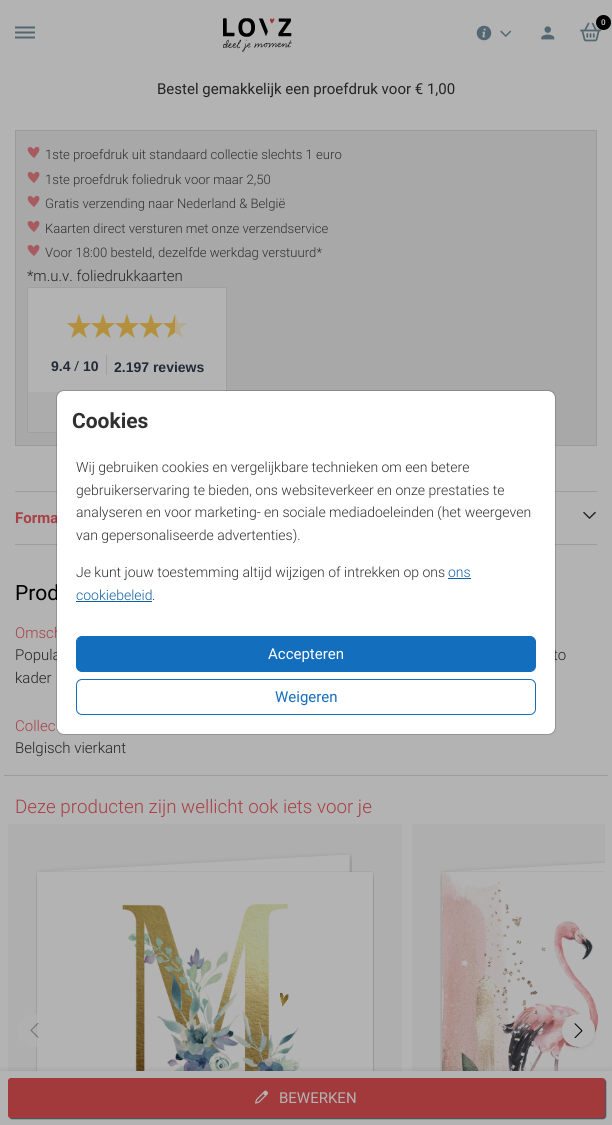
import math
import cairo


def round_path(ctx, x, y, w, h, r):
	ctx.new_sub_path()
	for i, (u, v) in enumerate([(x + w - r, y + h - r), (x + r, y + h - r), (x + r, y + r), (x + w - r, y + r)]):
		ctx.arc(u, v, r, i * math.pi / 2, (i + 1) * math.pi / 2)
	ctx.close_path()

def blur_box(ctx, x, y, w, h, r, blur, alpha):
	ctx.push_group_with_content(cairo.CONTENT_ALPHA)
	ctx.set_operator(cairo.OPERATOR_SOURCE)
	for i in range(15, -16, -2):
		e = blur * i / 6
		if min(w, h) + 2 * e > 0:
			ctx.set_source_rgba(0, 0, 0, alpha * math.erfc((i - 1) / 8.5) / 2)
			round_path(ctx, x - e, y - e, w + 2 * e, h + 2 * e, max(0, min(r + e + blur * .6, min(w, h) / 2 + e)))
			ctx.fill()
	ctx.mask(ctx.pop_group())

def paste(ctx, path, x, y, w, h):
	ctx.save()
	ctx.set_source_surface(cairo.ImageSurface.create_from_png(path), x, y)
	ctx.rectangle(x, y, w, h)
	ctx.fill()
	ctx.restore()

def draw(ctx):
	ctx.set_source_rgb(0.702, 0.702, 0.702)
	ctx.paint()
	paste(ctx, 'media/1.png', 223, 18, 69, 34)
	paste(ctx, 'media/2.png', 580, 22, 21, 20)
	ctx.set_source_rgb(0, 0, 0)
	ctx.arc(603.5, 22.5, 7.5, 0, 2 * math.pi)
	ctx.fill()
	ctx.select_font_face('Roboto', cairo.FONT_SLANT_NORMAL, cairo.FONT_WEIGHT_BOLD)
	ctx.set_font_size(8)
	ctx.set_source_rgb(0.702, 0.702, 0.702)
	ctx.move_to(601, 25)
	ctx.show_text('0')
	paste(ctx, 'media/3.png', 541, 26, 14, 14)
	paste(ctx, 'media/4.png', 476, 25, 16, 16)
	paste(ctx, 'media/5.png', 500, 30, 12, 7)
	paste(ctx, 'media/6.png', 15, 26, 20, 13)
	ctx.select_font_face('Roboto')
	ctx.set_font_size(15)
	ctx.set_source_rgb(0.141, 0.141, 0.141)
	ctx.move_to(157, 94)
	ctx.show_text('Bestel gemakkelijk een proefdruk voor € 1,00')
	ctx.set_source_rgb(0.659, 0.659, 0.659)
	ctx.rectangle(15.5, 130.5, 581, 315)
	ctx.fill_preserve()
	ctx.set_source_rgb(0.608, 0.608, 0.608)
	ctx.set_line_width(1)
	ctx.stroke()
	paste(ctx, 'media/7.png', 27, 146, 13, 12)
	ctx.select_font_face('Roboto Light')
	ctx.set_font_size(13.1)
	ctx.set_source_rgb(0.188, 0.188, 0.188)
	ctx.move_to(45, 159)
	ctx.show_text('1ste proefdruk uit standaard collectie slechts 1 euro')
	paste(ctx, 'media/7.png', 27, 171, 13, 12)
	ctx.move_to(45, 184)
	ctx.show_text('1ste proefdruk foliedruk voor maar 2,50')
	paste(ctx, 'media/7.png', 27, 195, 13, 12)
	ctx.move_to(45, 208)
	ctx.show_text('Gratis verzending naar Nederland & België')
	paste(ctx, 'media/7.png', 27, 220, 13, 12)
	ctx.move_to(45, 233)
	ctx.show_text('Kaarten direct versturen met onze verzendservice')
	paste(ctx, 'media/7.png', 27, 244, 13, 12)
	ctx.move_to(45, 257)
	ctx.show_text('Voor 18:00 besteld, dezelfde werkdag verstuurd*')
	ctx.set_font_size(15)
	ctx.set_source_rgb(0.141, 0.141, 0.141)
	ctx.move_to(27, 281)
	ctx.show_text('*m.u.v. foliedrukkaarten')
	ctx.set_source_rgb(0.702, 0.702, 0.702)
	ctx.rectangle(28, 288, 198, 104)
	ctx.fill()
	ctx.rectangle(27.5, 287.5, 199, 145)
	ctx.set_source_rgb(0.627, 0.627, 0.627)
	ctx.stroke()
	paste(ctx, 'media/8.png', 67, 314, 24, 24)
	paste(ctx, 'media/9.png', 67, 314, 24, 24)
	paste(ctx, 'media/8.png', 91, 314, 24, 24)
	paste(ctx, 'media/9.png', 91, 314, 24, 24)
	paste(ctx, 'media/8.png', 115, 314, 24, 24)
	paste(ctx, 'media/9.png', 115, 314, 24, 24)
	paste(ctx, 'media/8.png', 139, 314, 24, 24)
	paste(ctx, 'media/9.png', 139, 314, 24, 24)
	paste(ctx, 'media/8.png', 163, 314, 24, 24)
	paste(ctx, 'media/10.png', 163, 314, 12, 24)
	ctx.select_font_face('Liberation Sans', cairo.FONT_SLANT_NORMAL, cairo.FONT_WEIGHT_BOLD)
	ctx.set_font_size(14)
	ctx.set_source_rgb(0.133, 0.165, 0.22)
	ctx.move_to(51, 371)
	ctx.show_text('9.4')
	ctx.select_font_face('Open Sans')
	ctx.move_to(74, 371)
	ctx.show_text('/')
	ctx.select_font_face('Liberation Sans', cairo.FONT_SLANT_NORMAL, cairo.FONT_WEIGHT_BOLD)
	ctx.move_to(83, 371)
	ctx.show_text('10')
	ctx.set_source_rgb(0.627, 0.627, 0.627)
	ctx.rectangle(106, 355, 1, 20)
	ctx.fill()
	ctx.set_source_rgb(0.133, 0.165, 0.22)
	ctx.move_to(114, 372)
	ctx.show_text('2.197 reviews')
	ctx.set_source_rgb(0.675, 0.675, 0.675)
	ctx.rectangle(28, 392, 33, 40)
	ctx.fill()
	ctx.set_source_rgb(0.608, 0.62, 0.631)
	ctx.rectangle(15, 491, 582, 1)
	ctx.rectangle(15, 544, 582, 1)
	ctx.fill()
	ctx.select_font_face('Roboto', cairo.FONT_SLANT_NORMAL, cairo.FONT_WEIGHT_BOLD)
	ctx.set_font_size(15)
	ctx.set_source_rgb(0.659, 0.251, 0.267)
	ctx.move_to(15, 523)
	ctx.show_text('Forma')
	paste(ctx, 'media/11.png', 583, 511, 13, 8)
	ctx.set_source_rgb(0.608, 0.62, 0.631)
	ctx.rectangle(4, 775, 604, 1)
	ctx.fill()
	ctx.select_font_face('Roboto')
	ctx.set_font_size(21)
	ctx.set_source_rgb(0, 0, 0)
	ctx.move_to(15, 600)
	ctx.show_text('Prod')
	ctx.select_font_face('Roboto Light')
	ctx.set_font_size(15)
	ctx.set_source_rgb(0.659, 0.251, 0.267)
	ctx.move_to(15, 638)
	ctx.show_text('Omsch')
	ctx.set_source_rgb(0.141, 0.141, 0.141)
	for x, y, s in [
		(15, 660, 'Popula'),
		(553, 660, 'to'),
		(15, 683, 'kader'),
	]:
		ctx.move_to(x, y)
		ctx.show_text(s)
	ctx.set_source_rgb(0.659, 0.251, 0.267)
	ctx.move_to(15, 731)
	ctx.show_text('Collec')
	ctx.set_source_rgb(0.141, 0.141, 0.141)
	ctx.move_to(15, 753)
	ctx.show_text('Belgisch vierkant')
	ctx.set_font_size(18.75)
	ctx.set_source_rgb(0.659, 0.251, 0.267)
	ctx.move_to(15, 813)
	ctx.show_text('Deze producten zijn wellicht ook iets voor je')
	ctx.set_source_rgb(0.682, 0.682, 0.686)
	ctx.rectangle(8, 824, 394, 5)
	ctx.fill()
	round_path(ctx, 8, 824, 394, 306, 5)
	ctx.fill()
	paste(ctx, 'media/12.png', 36, 853, 316, 218)
	paste(ctx, 'media/13.png', 36, 871, 338, 200)
	ctx.rectangle(412, 824, 5, 5)
	ctx.fill()
	ctx.new_path()
	ctx.move_to(417, 824)
	ctx.line_to(605, 824)
	ctx.line_to(605, 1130)
	ctx.line_to(417, 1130)
	ctx.curve_to(414, 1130, 412, 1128, 412, 1125)
	ctx.line_to(412, 829)
	ctx.curve_to(412, 826, 414, 824, 417, 824)
	ctx.close_path()
	ctx.fill()
	paste(ctx, 'media/14.png', 440, 861, 165, 210)
	paste(ctx, 'media/15.png', 440, 871, 165, 200)
	ctx.set_source_rgba(0.702, 0.702, 0.702, 0.35)
	ctx.arc(34.5, 1030.5, 16.5, 0, 2 * math.pi)
	ctx.fill()
	ctx.arc(34.5, 1030.5, 12, 0, 2 * math.pi)
	ctx.set_line_width(9)
	ctx.stroke()
	paste(ctx, 'media/16.png', 30, 1023, 9, 15)
	ctx.set_source_rgb(0, 0, 0)
	blur_box(ctx, 562, 1016, 33, 33, 16.5, 2, 0.07)
	ctx.set_source_rgb(0.702, 0.702, 0.702)
	ctx.arc(578.5, 1030.5, 12, 0, 2 * math.pi)
	ctx.fill_preserve()
	ctx.stroke()
	paste(ctx, 'media/17.png', 574, 1023, 9, 15)
	ctx.set_source_rgb(0.071, 0.071, 0.071)
	blur_box(ctx, 0, 1069, 612, 54, 0, 2, 0.07)
	ctx.set_source_rgb(0.702, 0.702, 0.702)
	ctx.rectangle(0, 1071, 612, 54)
	ctx.fill()
	ctx.set_source_rgb(0.043, 0.071, 0.114)
	blur_box(ctx, 9, 1079, 597, 40, 3, 0.5, 0.67)
	ctx.set_source_rgb(0.635, 0.224, 0.231)
	round_path(ctx, 8.5, 1078.5, 596, 39, 2.5)
	ctx.fill_preserve()
	ctx.set_line_width(1)
	ctx.stroke()
	paste(ctx, 'media/18.png', 255, 1090, 14, 14)
	ctx.select_font_face('Roboto')
	ctx.set_font_size(15)
	ctx.set_source_rgb(0.702, 0.702, 0.702)
	ctx.move_to(279, 1103)
	ctx.show_text('BEWERKEN')
	ctx.set_source_rgb(1, 1, 1)
	round_path(ctx, 57, 391, 498, 343, 7)
	ctx.fill()
	round_path(ctx, 56.5, 390.5, 499, 344, 7.5)
	ctx.set_source_rgba(0, 0, 0, 0.18)
	ctx.stroke()
	ctx.select_font_face('Roboto', cairo.FONT_SLANT_NORMAL, cairo.FONT_WEIGHT_BOLD)
	ctx.set_font_size(21)
	ctx.set_source_rgb(0.188, 0.188, 0.188)
	ctx.move_to(72, 428)
	ctx.show_text('Cookies')
	ctx.select_font_face('Roboto Light')
	ctx.set_font_size(14)
	for x, y, s in [
		(76, 472, 'Wij gebruiken cookies en vergelijkbare technieken om een betere'),
		(76, 495, 'gebruikerservaring te bieden, ons websiteverkeer en onze prestaties te'),
		(76, 517, 'analyseren en voor marketing- en sociale mediadoeleinden (het weergeven'),
		(76, 540, 'van gepersonaliseerde advertenties).'),
		(76, 577, 'Je kunt jouw toestemming altijd wijzigen of intrekken op ons'),
	]:
		ctx.move_to(x, y)
		ctx.show_text(s)
	ctx.set_source_rgb(0.067, 0.369, 0.635)
	ctx.move_to(448, 577)
	ctx.show_text('ons')
	ctx.rectangle(448, 578, 23, 1)
	ctx.fill()
	ctx.move_to(76, 600)
	ctx.show_text('cookiebeleid')
	ctx.rectangle(76, 601, 76, 1)
	ctx.fill()
	ctx.set_source_rgb(0.188, 0.188, 0.188)
	ctx.move_to(152, 600)
	ctx.show_text('.')
	ctx.set_source_rgb(0.078, 0.431, 0.745)
	round_path(ctx, 76.5, 636.5, 459, 35, 5.5)
	ctx.fill_preserve()
	ctx.stroke()
	ctx.select_font_face('Roboto')
	ctx.set_font_size(15)
	ctx.set_source_rgb(1, 1, 1)
	ctx.move_to(268, 659)
	ctx.show_text('Accepteren')
	round_path(ctx, 76.5, 679.5, 459, 35, 5.5)
	ctx.set_source_rgb(0.078, 0.431, 0.745)
	ctx.stroke()
	ctx.move_to(275, 702)
	ctx.show_text('Weigeren')


surface = cairo.ImageSurface(cairo.FORMAT_RGB24, 612, 1125)
ctx = cairo.Context(surface)
options = cairo.FontOptions()
options.set_hint_metrics(cairo.HINT_METRICS_OFF)
options.set_hint_style(cairo.HINT_STYLE_NONE)
ctx.set_font_options(options)
ctx.set_miter_limit(4)
draw(ctx)
surface.write_to_png('image.png')
